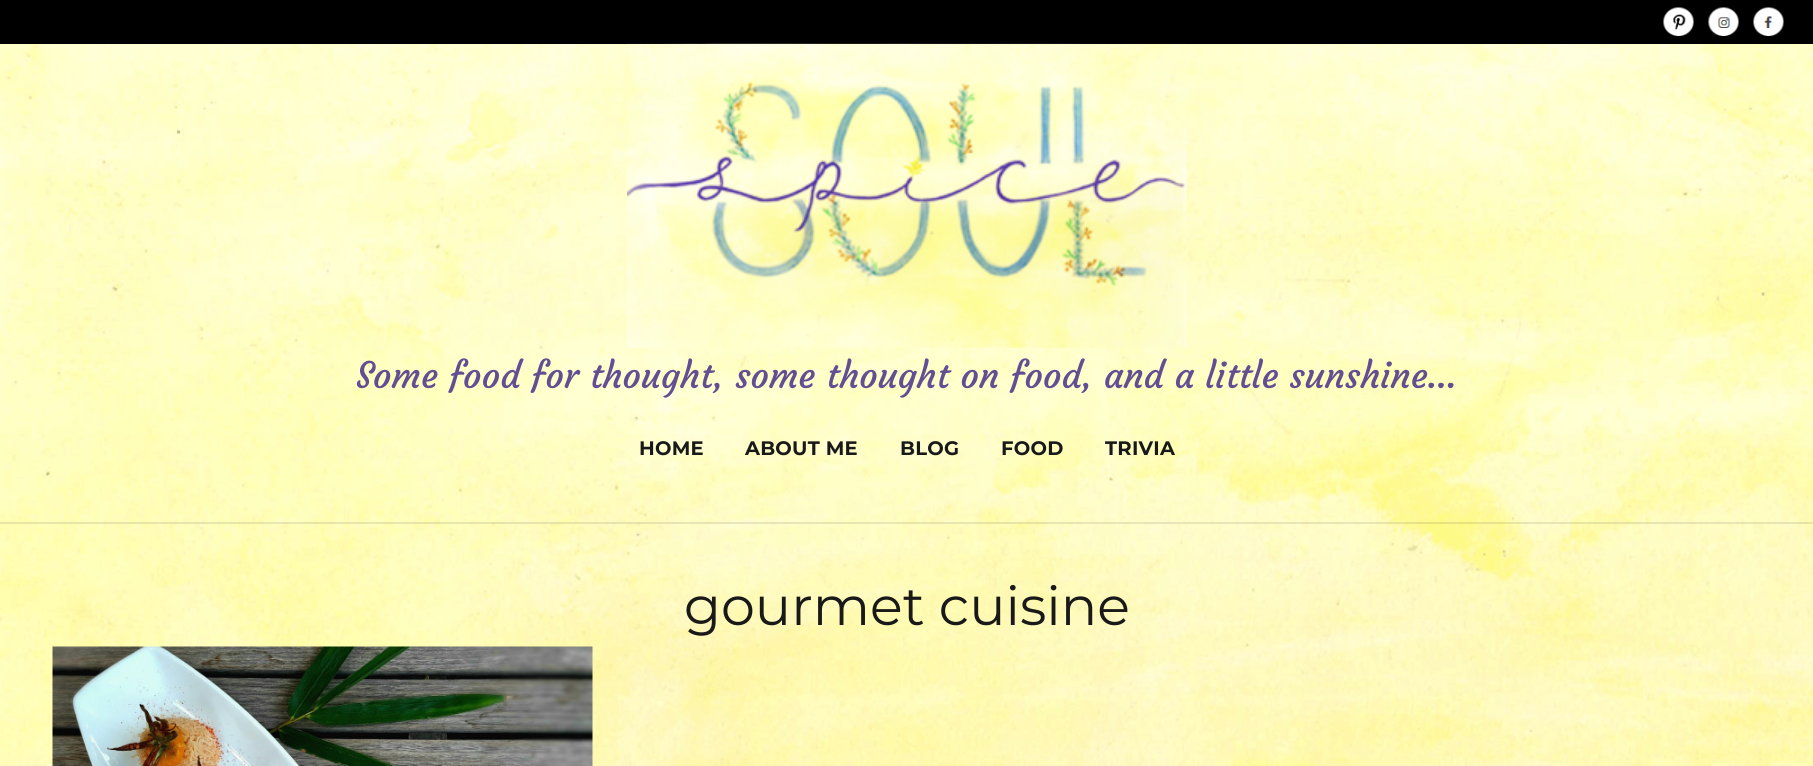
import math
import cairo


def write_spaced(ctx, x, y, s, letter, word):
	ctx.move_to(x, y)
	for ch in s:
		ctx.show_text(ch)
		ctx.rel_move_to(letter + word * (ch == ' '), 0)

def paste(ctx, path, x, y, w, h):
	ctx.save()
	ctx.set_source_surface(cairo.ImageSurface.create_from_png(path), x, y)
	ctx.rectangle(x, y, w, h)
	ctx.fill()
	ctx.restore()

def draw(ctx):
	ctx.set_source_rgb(1, 1, 1)
	ctx.paint()
	paste(ctx, 'media/1.png', 0, 44, 1813, 722)
	ctx.set_source_rgb(0, 0, 0)
	ctx.rectangle(0, 0, 1813, 44)
	ctx.fill()
	paste(ctx, 'media/2.png', 1663, 7, 31, 29)
	paste(ctx, 'media/3.png', 1708, 7, 31, 29)
	paste(ctx, 'media/4.png', 1753, 7, 31, 29)
	paste(ctx, 'media/5.png', 627, 43, 560, 305)
	ctx.select_font_face('Courgette')
	ctx.set_font_size(36)
	ctx.set_source_rgb(0.388, 0.302, 0.576)
	ctx.move_to(356, 388)
	ctx.show_text('Some food for thought, some thought on food, and a little sunshine…')
	ctx.select_font_face('Montserrat', cairo.FONT_SLANT_NORMAL, cairo.FONT_WEIGHT_BOLD)
	ctx.set_font_size(19.5)
	ctx.set_source_rgb(0.098, 0.098, 0.098)
	for x, y, s in [
		(639, 455, 'HOME'),
		(745, 455, 'ABOUT ME'),
		(900, 455, 'BLOG'),
		(1001, 455, 'FOOD'),
		(1105, 455, 'TRIVIA'),
	]:
		write_spaced(ctx, x, y, s, 0.25, 0)
	ctx.set_source_rgba(0.098, 0.098, 0.098, 0.1)
	ctx.rectangle(0, 522, 1813, 2)
	ctx.fill()
	ctx.select_font_face('Montserrat')
	ctx.set_font_size(54)
	ctx.set_source_rgb(0.098, 0.098, 0.098)
	ctx.move_to(684, 625)
	ctx.show_text('gourmet cuisine')
	paste(ctx, 'media/6.png', 52, 646, 541, 120)


surface = cairo.ImageSurface(cairo.FORMAT_RGB24, 1813, 766)
ctx = cairo.Context(surface)
options = cairo.FontOptions()
options.set_hint_metrics(cairo.HINT_METRICS_OFF)
options.set_hint_style(cairo.HINT_STYLE_NONE)
ctx.set_font_options(options)
ctx.set_miter_limit(4)
draw(ctx)
surface.write_to_png('image.png')
